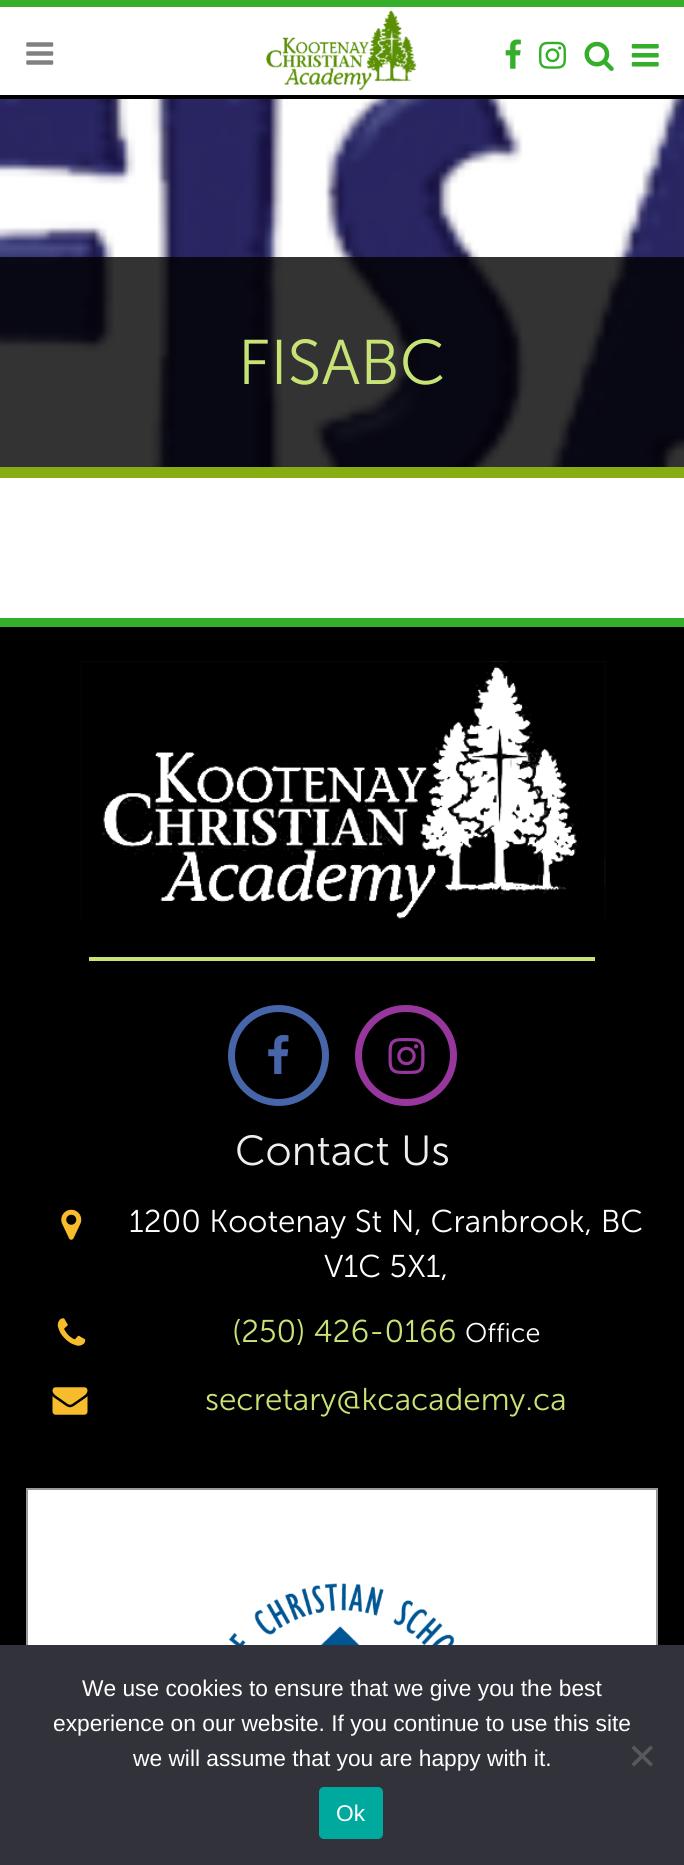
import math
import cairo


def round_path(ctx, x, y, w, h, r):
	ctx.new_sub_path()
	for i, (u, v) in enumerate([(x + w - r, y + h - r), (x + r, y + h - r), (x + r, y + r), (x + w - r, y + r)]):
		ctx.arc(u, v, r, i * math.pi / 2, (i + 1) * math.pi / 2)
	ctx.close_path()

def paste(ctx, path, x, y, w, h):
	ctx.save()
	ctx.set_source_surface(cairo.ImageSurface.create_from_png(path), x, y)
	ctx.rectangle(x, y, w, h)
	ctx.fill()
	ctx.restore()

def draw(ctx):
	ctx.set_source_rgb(1, 1, 1)
	ctx.paint()
	paste(ctx, 'media/1.png', 0, 99, 684, 368)
	ctx.set_source_rgb(0.208, 0.682, 0.165)
	ctx.rectangle(0, 0, 684, 7)
	ctx.fill()
	ctx.set_source_rgb(0, 0, 0)
	ctx.rectangle(0, 95, 684, 4)
	ctx.fill()
	paste(ctx, 'media/2.png', 26, 42, 28, 23)
	paste(ctx, 'media/3.png', 266, 10, 151, 81)
	paste(ctx, 'media/4.png', 505, 39, 16, 30)
	paste(ctx, 'media/5.png', 539, 41, 27, 28)
	paste(ctx, 'media/6.png', 584, 41, 30, 30)
	paste(ctx, 'media/7.png', 631, 44, 28, 23)
	ctx.set_source_rgba(0, 0, 0, 0.8)
	ctx.rectangle(0, 257, 684, 210)
	ctx.fill()
	ctx.select_font_face('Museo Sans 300 Light')
	ctx.set_font_size(63)
	ctx.set_source_rgb(0.78, 0.89, 0.463)
	ctx.move_to(238, 384)
	ctx.show_text('FISABC')
	ctx.set_source_rgb(0.525, 0.682, 0.071)
	ctx.rectangle(0, 467, 684, 11)
	ctx.fill()
	ctx.set_source_rgb(0, 0, 0)
	ctx.rectangle(0, 627, 684, 1018)
	ctx.fill()
	ctx.set_source_rgb(0.208, 0.682, 0.165)
	ctx.rectangle(0, 618, 684, 9)
	ctx.fill()
	paste(ctx, 'media/8.png', 80, 661, 526, 258)
	ctx.set_source_rgb(0.78, 0.89, 0.463)
	ctx.rectangle(89, 957, 506, 4)
	ctx.fill()
	ctx.arc(278.5, 1055.5, 47, 0, 2 * math.pi)
	ctx.set_source_rgb(0.278, 0.4, 0.663)
	ctx.set_line_width(7)
	ctx.stroke()
	paste(ctx, 'media/9.png', 268, 1035, 21, 39)
	round_path(ctx, 358.5, 1008.5, 95, 94, 47)
	ctx.set_source_rgb(0.592, 0.212, 0.616)
	ctx.stroke()
	paste(ctx, 'media/10.png', 388, 1038, 37, 36)
	ctx.set_font_size(42)
	ctx.set_source_rgb(0.933, 0.933, 0.933)
	ctx.move_to(235, 1165)
	ctx.show_text('Contact Us')
	paste(ctx, 'media/11.png', 61, 1209, 21, 31)
	ctx.set_font_size(31.5)
	ctx.set_source_rgb(1, 1, 1)
	ctx.move_to(129, 1232)
	ctx.show_text('1200 Kootenay St N, Cranbrook, BC')
	ctx.move_to(324, 1277)
	ctx.show_text('V1C 5X1,')
	paste(ctx, 'media/12.png', 57, 1318, 29, 28)
	ctx.set_source_rgb(0.78, 0.89, 0.463)
	ctx.move_to(232, 1342)
	ctx.show_text('(250) 426-0166')
	ctx.set_font_size(27)
	ctx.set_source_rgb(1, 1, 1)
	ctx.move_to(465, 1342)
	ctx.show_text('Office')
	paste(ctx, 'media/13.png', 52, 1387, 36, 28)
	ctx.set_font_size(31.5)
	ctx.set_source_rgb(0.78, 0.89, 0.463)
	ctx.move_to(205, 1410)
	ctx.show_text('secretary@kcacademy.ca')
	ctx.set_source_rgb(1, 1, 1)
	ctx.rectangle(28, 1490, 628, 155)
	ctx.fill()
	ctx.rectangle(27, 1489, 630, 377)
	ctx.set_source_rgb(0.6, 0.6, 0.6)
	ctx.set_line_width(2)
	ctx.stroke()
	paste(ctx, 'media/14.png', 182, 1583, 320, 62)
	ctx.set_source_rgb(0.196, 0.196, 0.227)
	ctx.rectangle(0, 1645, 684, 220)
	ctx.fill()
	ctx.select_font_face('Liberation Sans')
	ctx.set_font_size(22.75)
	ctx.set_source_rgb(1, 1, 1)
	for x, y, s in [
		(82, 1696, 'We use cookies to ensure that we give you the best'),
		(53, 1731, 'experience on our website. If you continue to use this site'),
		(133, 1766, 'we will assume that you are happy with it.'),
	]:
		ctx.move_to(x, y)
		ctx.show_text(s)
	ctx.set_source_rgb(0.349, 0.349, 0.365)
	ctx.new_path()
	ctx.move_to(650.5, 1745.5)
	ctx.line_to(653, 1748)
	ctx.line_to(634, 1766.5)
	ctx.line_to(631.5, 1764)
	ctx.close_path()
	ctx.fill()
	ctx.new_path()
	ctx.move_to(631.5, 1748)
	ctx.line_to(634, 1745.5)
	ctx.line_to(653, 1764)
	ctx.line_to(650.5, 1766.5)
	ctx.close_path()
	ctx.fill()
	ctx.set_source_rgb(0, 0.663, 0.616)
	round_path(ctx, 319, 1787, 64, 52, 5)
	ctx.fill()
	ctx.set_source_rgb(1, 1, 1)
	ctx.move_to(336, 1821)
	ctx.show_text('Ok')


surface = cairo.ImageSurface(cairo.FORMAT_RGB24, 684, 1865)
ctx = cairo.Context(surface)
options = cairo.FontOptions()
options.set_hint_metrics(cairo.HINT_METRICS_OFF)
options.set_hint_style(cairo.HINT_STYLE_NONE)
ctx.set_font_options(options)
ctx.set_miter_limit(4)
draw(ctx)
surface.write_to_png('image.png')
